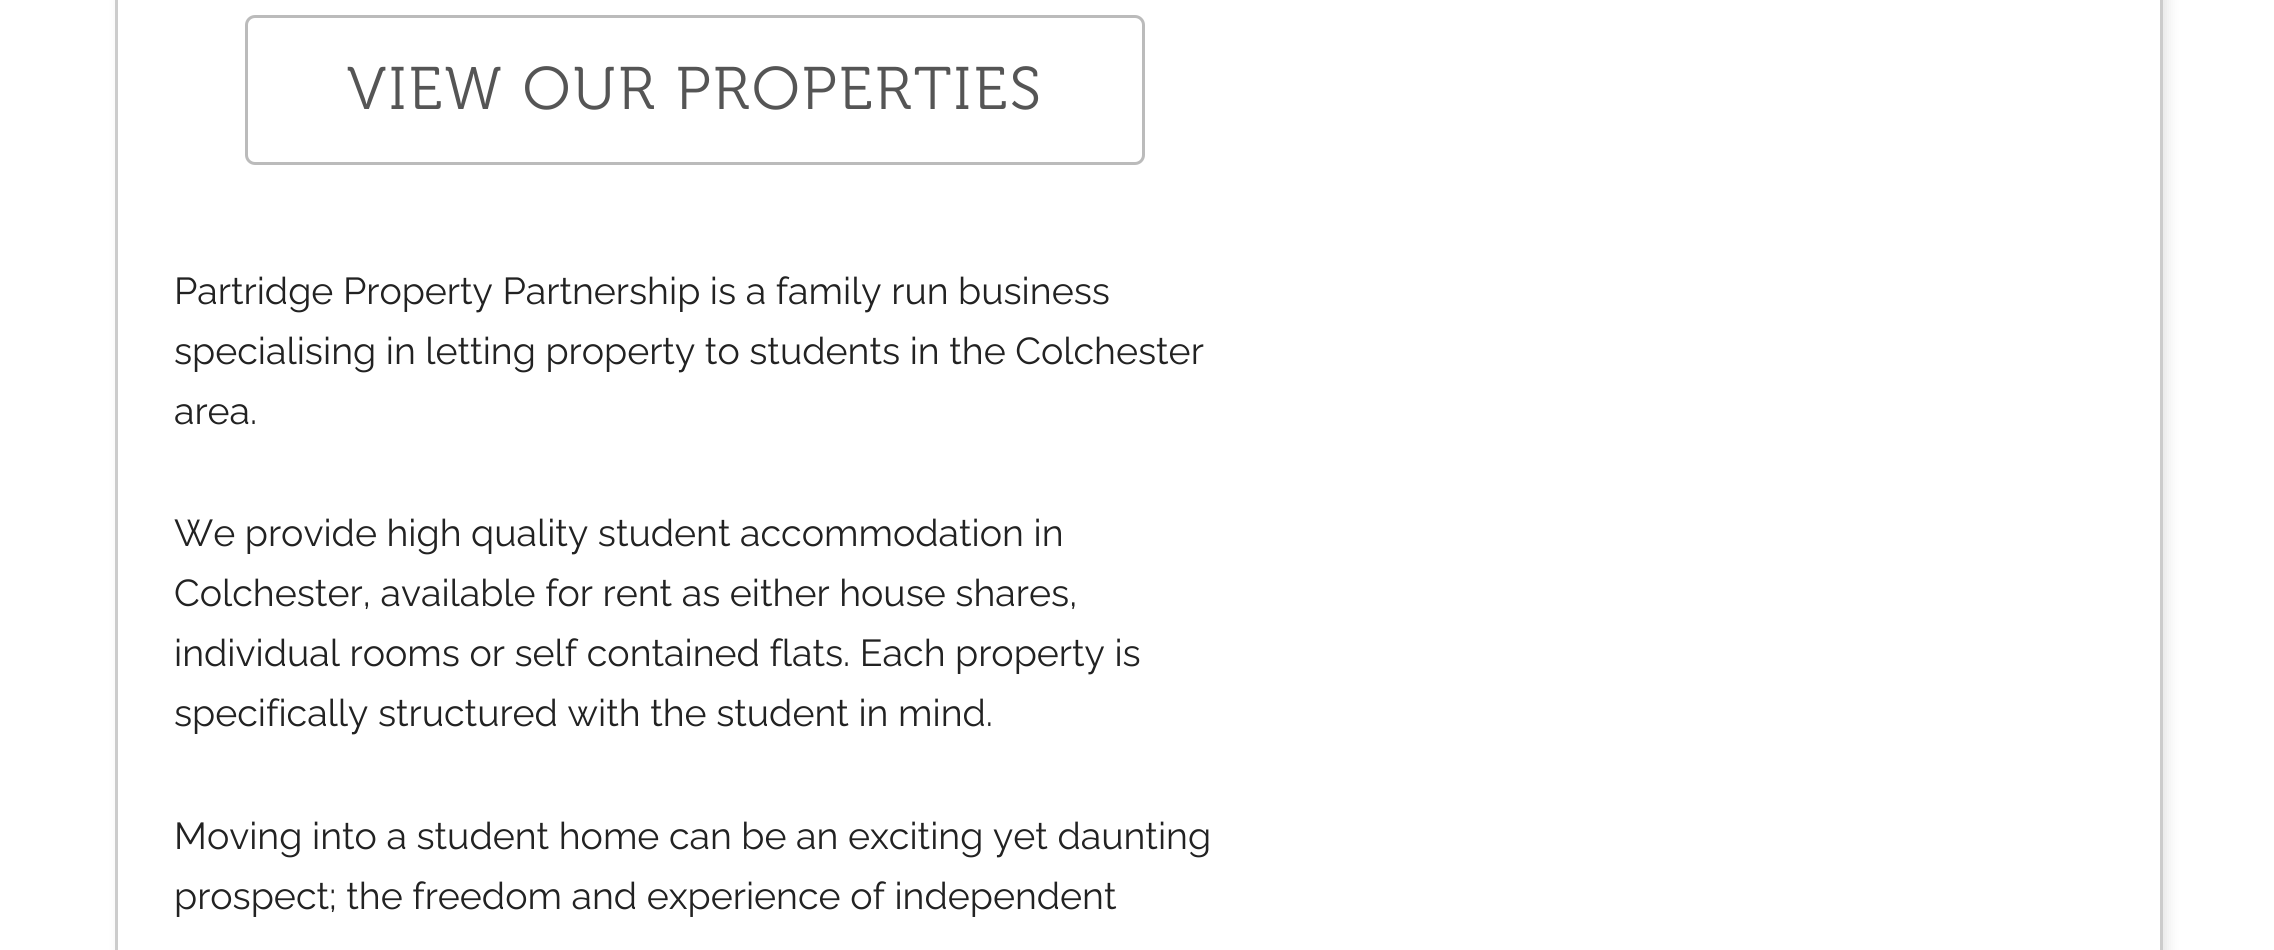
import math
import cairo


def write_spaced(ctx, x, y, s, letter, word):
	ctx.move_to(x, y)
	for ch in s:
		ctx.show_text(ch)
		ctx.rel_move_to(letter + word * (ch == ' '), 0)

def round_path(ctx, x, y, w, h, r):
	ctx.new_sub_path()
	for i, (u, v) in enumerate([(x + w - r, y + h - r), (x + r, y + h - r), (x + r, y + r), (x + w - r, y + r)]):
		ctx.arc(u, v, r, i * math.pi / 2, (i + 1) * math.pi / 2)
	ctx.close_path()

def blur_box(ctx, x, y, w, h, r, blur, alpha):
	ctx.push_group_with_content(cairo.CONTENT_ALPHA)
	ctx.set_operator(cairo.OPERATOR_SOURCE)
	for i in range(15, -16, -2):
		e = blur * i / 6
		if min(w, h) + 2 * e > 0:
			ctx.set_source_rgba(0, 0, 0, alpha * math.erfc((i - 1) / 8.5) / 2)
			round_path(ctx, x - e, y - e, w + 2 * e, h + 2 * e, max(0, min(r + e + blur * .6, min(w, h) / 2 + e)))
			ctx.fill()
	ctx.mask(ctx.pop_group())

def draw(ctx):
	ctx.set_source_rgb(1, 1, 1)
	ctx.paint()
	ctx.set_source_rgb(0, 0, 0)
	blur_box(ctx, 120, -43, 2048, 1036, 25, 6, 0.1)
	ctx.set_source_rgb(1, 1, 1)
	ctx.rectangle(116.5, -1.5, 2045, 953)
	ctx.fill_preserve()
	ctx.set_source_rgb(0.8, 0.8, 0.8)
	ctx.set_line_width(3)
	ctx.stroke()
	round_path(ctx, 246.5, 16.5, 897, 147, 8.5)
	ctx.set_source_rgb(0.733, 0.733, 0.733)
	ctx.stroke()
	ctx.select_font_face('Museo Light')
	ctx.set_font_size(60)
	ctx.set_source_rgb(0.333, 0.333, 0.333)
	write_spaced(ctx, 347, 109, 'VIEW OUR PROPERTIES', 2.5, 0)
	ctx.select_font_face('Raleway')
	ctx.set_font_size(37.5)
	ctx.set_source_rgb(0.133, 0.133, 0.133)
	for x, y, s in [
		(174, 304, 'Partridge Property Partnership is a family run business'),
		(174, 364, 'specialising in letting property to students in the Colchester'),
		(174, 424, 'area.'),
		(174, 546, 'We provide high quality student accommodation in'),
		(174, 606, 'Colchester, available for rent as either house shares,'),
		(174, 666, 'individual rooms or self contained flats. Each property is'),
		(174, 726, 'specifically structured with the student in mind.'),
		(174, 849, 'Moving into a student home can be an exciting yet daunting'),
		(174, 909, 'prospect; the freedom and experience of independent'),
	]:
		ctx.move_to(x, y)
		ctx.show_text(s)


surface = cairo.ImageSurface(cairo.FORMAT_RGB24, 2274, 950)
ctx = cairo.Context(surface)
options = cairo.FontOptions()
options.set_hint_metrics(cairo.HINT_METRICS_OFF)
options.set_hint_style(cairo.HINT_STYLE_NONE)
ctx.set_font_options(options)
ctx.set_miter_limit(4)
draw(ctx)
surface.write_to_png('image.png')
